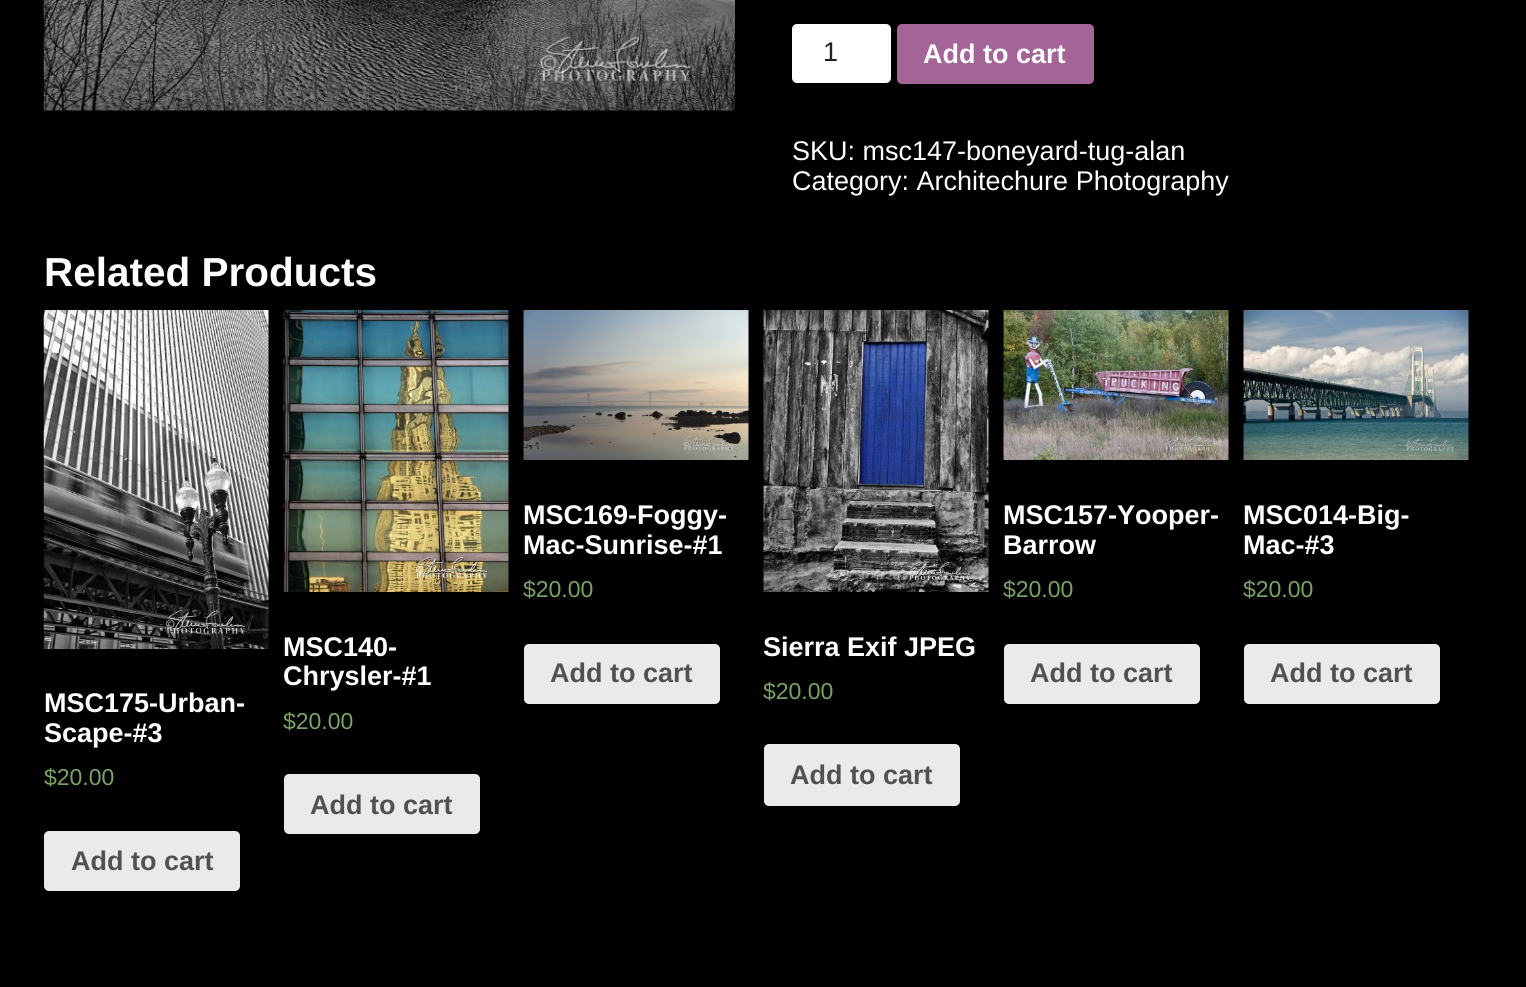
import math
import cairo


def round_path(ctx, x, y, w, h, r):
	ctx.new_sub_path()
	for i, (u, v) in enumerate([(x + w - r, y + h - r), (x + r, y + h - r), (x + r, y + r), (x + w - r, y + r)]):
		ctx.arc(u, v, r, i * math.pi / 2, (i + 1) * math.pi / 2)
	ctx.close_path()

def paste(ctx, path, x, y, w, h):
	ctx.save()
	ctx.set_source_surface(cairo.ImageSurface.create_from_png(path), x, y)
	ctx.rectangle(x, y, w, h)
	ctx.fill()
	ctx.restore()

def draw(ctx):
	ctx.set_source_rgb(0, 0, 0)
	ctx.paint()
	paste(ctx, 'media/1.png', 43, 0, 692, 111)
	ctx.set_source_rgb(1, 1, 1)
	round_path(ctx, 792, 24, 99, 59, 5)
	ctx.fill()
	ctx.select_font_face('Liberation Sans')
	ctx.set_font_size(27)
	ctx.set_source_rgb(0.133, 0.133, 0.133)
	ctx.move_to(823, 61)
	ctx.show_text('1')
	ctx.set_source_rgb(0.643, 0.392, 0.592)
	round_path(ctx, 897, 24, 197, 60, 5)
	ctx.fill()
	ctx.select_font_face('Liberation Sans', cairo.FONT_SLANT_NORMAL, cairo.FONT_WEIGHT_BOLD)
	ctx.set_source_rgb(1, 1, 1)
	ctx.move_to(923, 63)
	ctx.show_text('Add to cart')
	ctx.select_font_face('Liberation Sans')
	ctx.move_to(792, 160)
	ctx.show_text('SKU: msc147-boneyard-tug-alan')
	ctx.move_to(792, 190)
	ctx.show_text('Category: Architechure Photography')
	ctx.select_font_face('Liberation Sans', cairo.FONT_SLANT_NORMAL, cairo.FONT_WEIGHT_BOLD)
	ctx.set_font_size(40.5)
	ctx.move_to(44, 286)
	ctx.show_text('Related Products')
	paste(ctx, 'media/2.png', 523, 310, 226, 150)
	ctx.set_font_size(27)
	ctx.move_to(523, 524)
	ctx.show_text('MSC169-Foggy-')
	ctx.move_to(523, 554)
	ctx.show_text('Mac-Sunrise-#1')
	ctx.select_font_face('Liberation Sans')
	ctx.set_font_size(23)
	ctx.set_source_rgb(0.467, 0.643, 0.392)
	ctx.move_to(523, 597)
	ctx.show_text('$20.00')
	ctx.set_source_rgb(0.922, 0.914, 0.922)
	round_path(ctx, 524, 644, 196, 60, 5)
	ctx.fill()
	ctx.select_font_face('Liberation Sans', cairo.FONT_SLANT_NORMAL, cairo.FONT_WEIGHT_BOLD)
	ctx.set_font_size(27)
	ctx.set_source_rgb(0.318, 0.318, 0.318)
	ctx.move_to(550, 682)
	ctx.show_text('Add to cart')
	paste(ctx, 'media/3.png', 1003, 310, 226, 150)
	ctx.set_source_rgb(1, 1, 1)
	ctx.move_to(1003, 524)
	ctx.show_text('MSC157-Yooper-')
	ctx.move_to(1003, 554)
	ctx.show_text('Barrow')
	ctx.select_font_face('Liberation Sans')
	ctx.set_font_size(23)
	ctx.set_source_rgb(0.467, 0.643, 0.392)
	ctx.move_to(1003, 597)
	ctx.show_text('$20.00')
	ctx.set_source_rgb(0.922, 0.914, 0.922)
	round_path(ctx, 1004, 644, 196, 60, 5)
	ctx.fill()
	ctx.select_font_face('Liberation Sans', cairo.FONT_SLANT_NORMAL, cairo.FONT_WEIGHT_BOLD)
	ctx.set_font_size(27)
	ctx.set_source_rgb(0.318, 0.318, 0.318)
	ctx.move_to(1030, 682)
	ctx.show_text('Add to cart')
	paste(ctx, 'media/4.png', 1243, 310, 226, 150)
	ctx.set_source_rgb(1, 1, 1)
	ctx.move_to(1243, 524)
	ctx.show_text('MSC014-Big-')
	ctx.move_to(1243, 554)
	ctx.show_text('Mac-#3')
	ctx.select_font_face('Liberation Sans')
	ctx.set_font_size(23)
	ctx.set_source_rgb(0.467, 0.643, 0.392)
	ctx.move_to(1243, 597)
	ctx.show_text('$20.00')
	ctx.set_source_rgb(0.922, 0.914, 0.922)
	round_path(ctx, 1244, 644, 196, 60, 5)
	ctx.fill()
	ctx.select_font_face('Liberation Sans', cairo.FONT_SLANT_NORMAL, cairo.FONT_WEIGHT_BOLD)
	ctx.set_font_size(27)
	ctx.set_source_rgb(0.318, 0.318, 0.318)
	ctx.move_to(1270, 682)
	ctx.show_text('Add to cart')
	paste(ctx, 'media/5.png', 43, 310, 226, 339)
	ctx.set_source_rgb(1, 1, 1)
	ctx.move_to(44, 712)
	ctx.show_text('MSC175-Urban-')
	ctx.move_to(44, 742)
	ctx.show_text('Scape-#3')
	ctx.select_font_face('Liberation Sans')
	ctx.set_font_size(23)
	ctx.set_source_rgb(0.467, 0.643, 0.392)
	ctx.move_to(44, 785)
	ctx.show_text('$20.00')
	ctx.set_source_rgb(0.922, 0.914, 0.922)
	round_path(ctx, 44, 831, 196, 60, 5)
	ctx.fill()
	ctx.select_font_face('Liberation Sans', cairo.FONT_SLANT_NORMAL, cairo.FONT_WEIGHT_BOLD)
	ctx.set_font_size(27)
	ctx.set_source_rgb(0.318, 0.318, 0.318)
	ctx.move_to(71, 870)
	ctx.show_text('Add to cart')
	paste(ctx, 'media/6.png', 283, 310, 226, 282)
	ctx.set_source_rgb(1, 1, 1)
	ctx.move_to(283, 656)
	ctx.show_text('MSC140-')
	ctx.move_to(283, 685)
	ctx.show_text('Chrysler-#1')
	ctx.select_font_face('Liberation Sans')
	ctx.set_font_size(23)
	ctx.set_source_rgb(0.467, 0.643, 0.392)
	ctx.move_to(283, 729)
	ctx.show_text('$20.00')
	ctx.set_source_rgb(0.922, 0.914, 0.922)
	round_path(ctx, 284, 774, 196, 60, 5)
	ctx.fill()
	ctx.select_font_face('Liberation Sans', cairo.FONT_SLANT_NORMAL, cairo.FONT_WEIGHT_BOLD)
	ctx.set_font_size(27)
	ctx.set_source_rgb(0.318, 0.318, 0.318)
	ctx.move_to(310, 814)
	ctx.show_text('Add to cart')
	paste(ctx, 'media/7.png', 763, 310, 226, 282)
	ctx.set_source_rgb(1, 1, 1)
	ctx.move_to(763, 656)
	ctx.show_text('Sierra Exif JPEG')
	ctx.select_font_face('Liberation Sans')
	ctx.set_font_size(23)
	ctx.set_source_rgb(0.467, 0.643, 0.392)
	ctx.move_to(763, 699)
	ctx.show_text('$20.00')
	ctx.set_source_rgb(0.922, 0.914, 0.922)
	round_path(ctx, 764, 744, 196, 62, 5)
	ctx.fill()
	ctx.select_font_face('Liberation Sans', cairo.FONT_SLANT_NORMAL, cairo.FONT_WEIGHT_BOLD)
	ctx.set_font_size(27)
	ctx.set_source_rgb(0.318, 0.318, 0.318)
	ctx.move_to(790, 784)
	ctx.show_text('Add to cart')


surface = cairo.ImageSurface(cairo.FORMAT_RGB24, 1526, 987)
ctx = cairo.Context(surface)
options = cairo.FontOptions()
options.set_hint_metrics(cairo.HINT_METRICS_OFF)
options.set_hint_style(cairo.HINT_STYLE_NONE)
ctx.set_font_options(options)
ctx.set_miter_limit(4)
draw(ctx)
surface.write_to_png('image.png')
